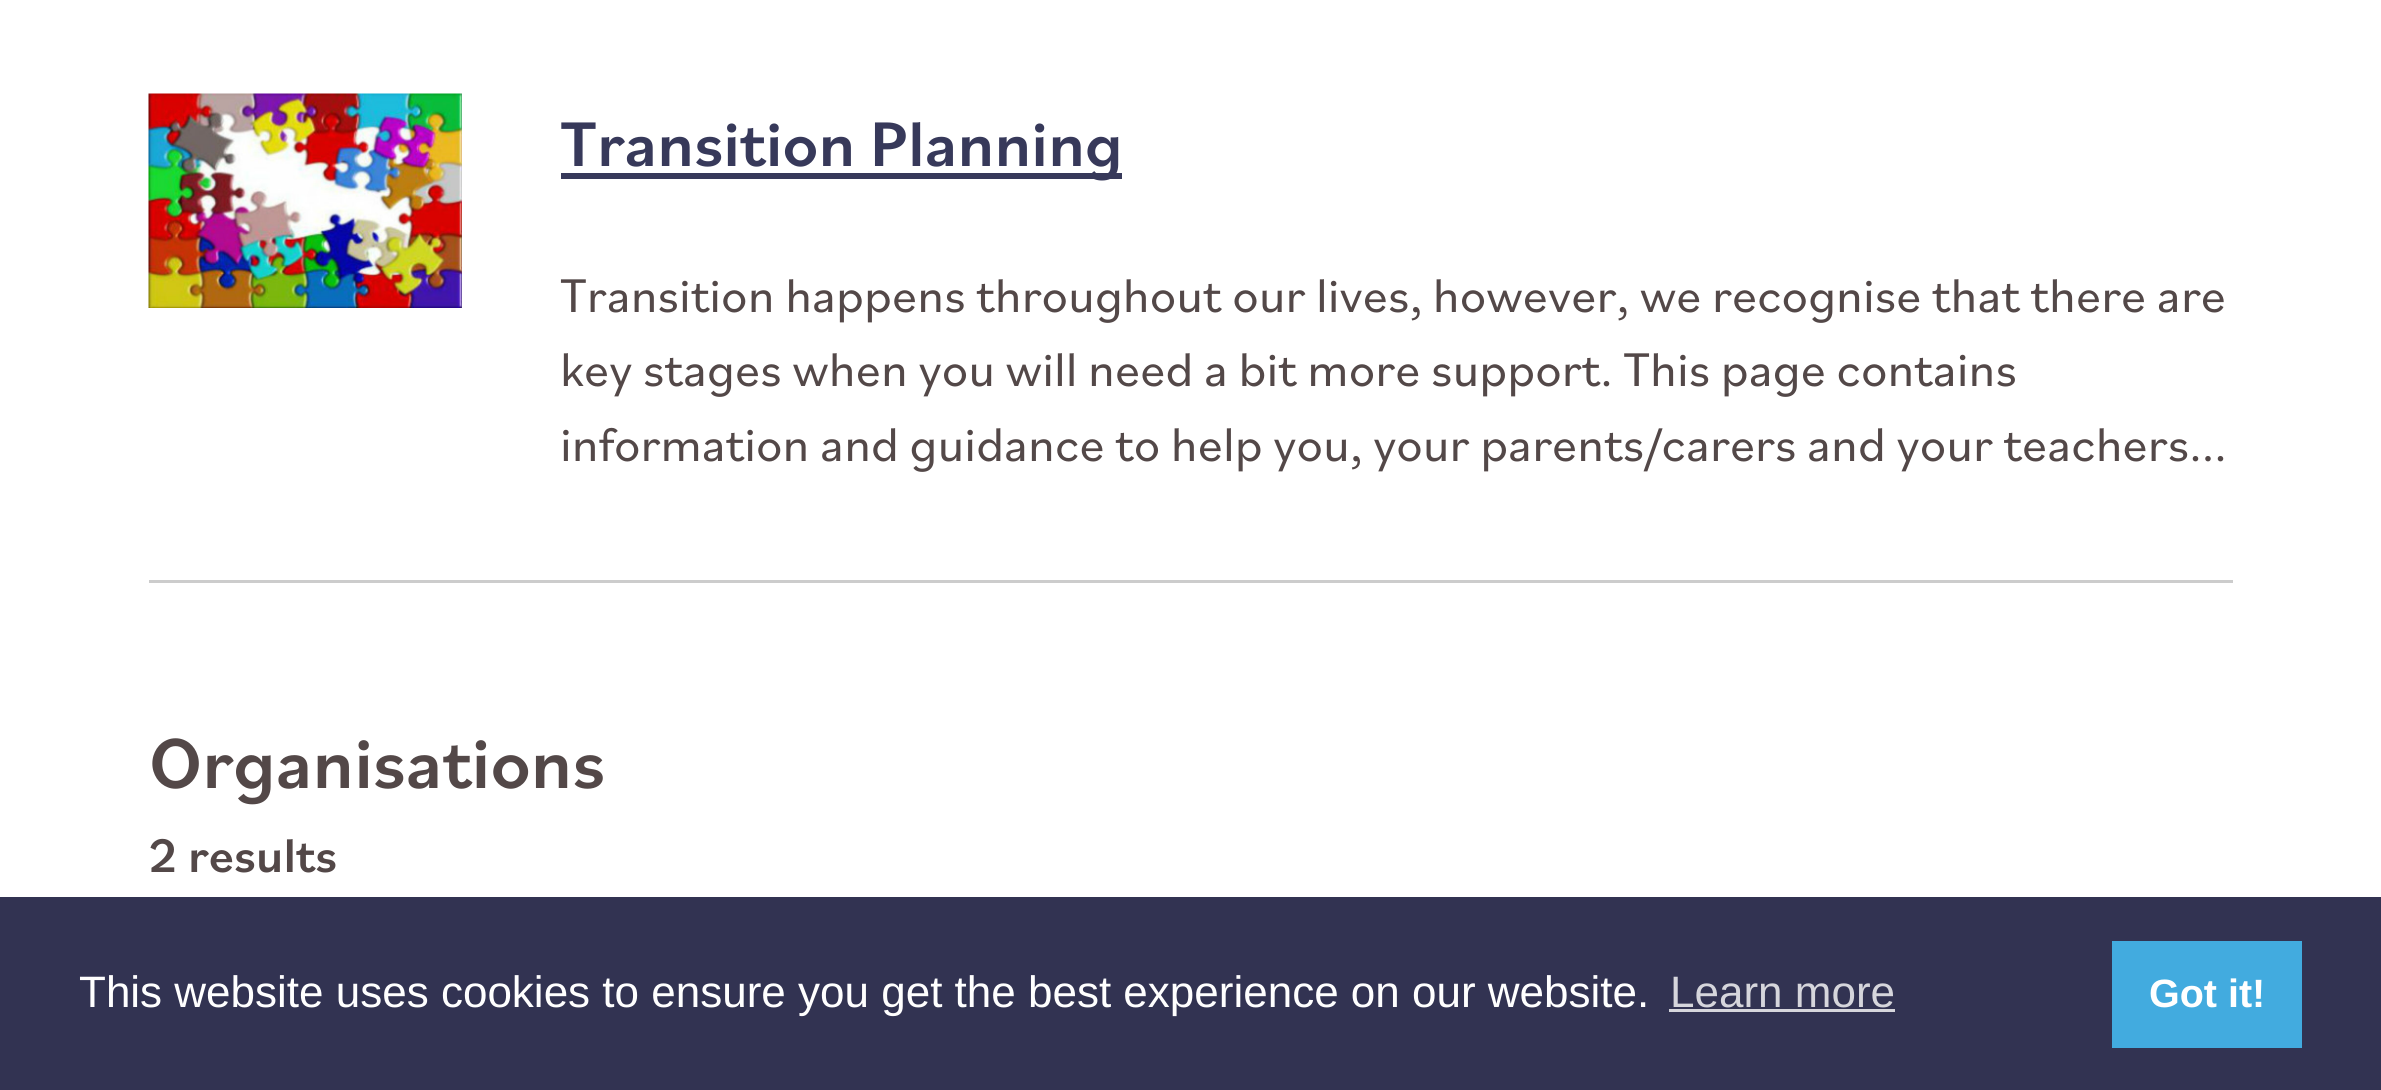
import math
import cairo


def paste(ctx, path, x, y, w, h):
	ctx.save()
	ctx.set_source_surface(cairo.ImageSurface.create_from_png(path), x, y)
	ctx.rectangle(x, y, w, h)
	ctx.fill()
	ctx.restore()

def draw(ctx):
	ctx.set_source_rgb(1, 1, 1)
	ctx.paint()
	ctx.set_source_rgb(0.8, 0.8, 0.8)
	ctx.rectangle(149, 580, 2084, 3)
	ctx.fill()
	paste(ctx, 'media/1.png', 148, 93, 314, 215)
	ctx.set_source_rgb(0.216, 0.224, 0.353)
	ctx.rectangle(561, 173, 561, 6)
	ctx.fill()
	ctx.select_font_face('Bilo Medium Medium')
	ctx.set_font_size(66)
	ctx.move_to(560, 166)
	ctx.show_text('Transition Planning')
	ctx.select_font_face('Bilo')
	ctx.set_font_size(49.5)
	ctx.set_source_rgb(0.325, 0.282, 0.282)
	for x, y, s in [
		(560, 312, 'Transition happens throughout our lives, however, we recognise that there are'),
		(560, 386, 'key stages when you will need a bit more support. This page contains'),
		(560, 461, 'information and guidance to help you, your parents/carers and your teachers...'),
	]:
		ctx.move_to(x, y)
		ctx.show_text(s)
	ctx.select_font_face('Bilo Medium Medium')
	ctx.set_font_size(74.25)
	ctx.move_to(149, 788)
	ctx.show_text('Organisations')
	ctx.set_font_size(49.5)
	ctx.move_to(149, 872)
	ctx.show_text('2 results')
	ctx.set_source_rgb(0.196, 0.2, 0.322)
	ctx.rectangle(0, 897, 2381, 193)
	ctx.fill()
	ctx.select_font_face('Liberation Sans')
	ctx.set_font_size(44)
	ctx.set_source_rgb(1, 1, 1)
	ctx.move_to(79, 1007)
	ctx.show_text('This website uses cookies to ensure you get the best experience on our website.')
	ctx.set_source_rgb(0.839, 0.839, 0.863)
	ctx.move_to(1670, 1007)
	ctx.show_text('Learn more')
	ctx.rectangle(1669, 1009, 226, 3)
	ctx.fill()
	ctx.set_source_rgb(0.259, 0.671, 0.875)
	ctx.rectangle(2112, 941, 190, 107)
	ctx.fill()
	ctx.select_font_face('Liberation Sans', cairo.FONT_SLANT_NORMAL, cairo.FONT_WEIGHT_BOLD)
	ctx.set_font_size(39.5)
	ctx.set_source_rgb(1, 1, 1)
	ctx.move_to(2149, 1007)
	ctx.show_text('Got it!')


surface = cairo.ImageSurface(cairo.FORMAT_RGB24, 2381, 1090)
ctx = cairo.Context(surface)
options = cairo.FontOptions()
options.set_hint_metrics(cairo.HINT_METRICS_OFF)
options.set_hint_style(cairo.HINT_STYLE_NONE)
ctx.set_font_options(options)
ctx.set_miter_limit(4)
draw(ctx)
surface.write_to_png('image.png')
